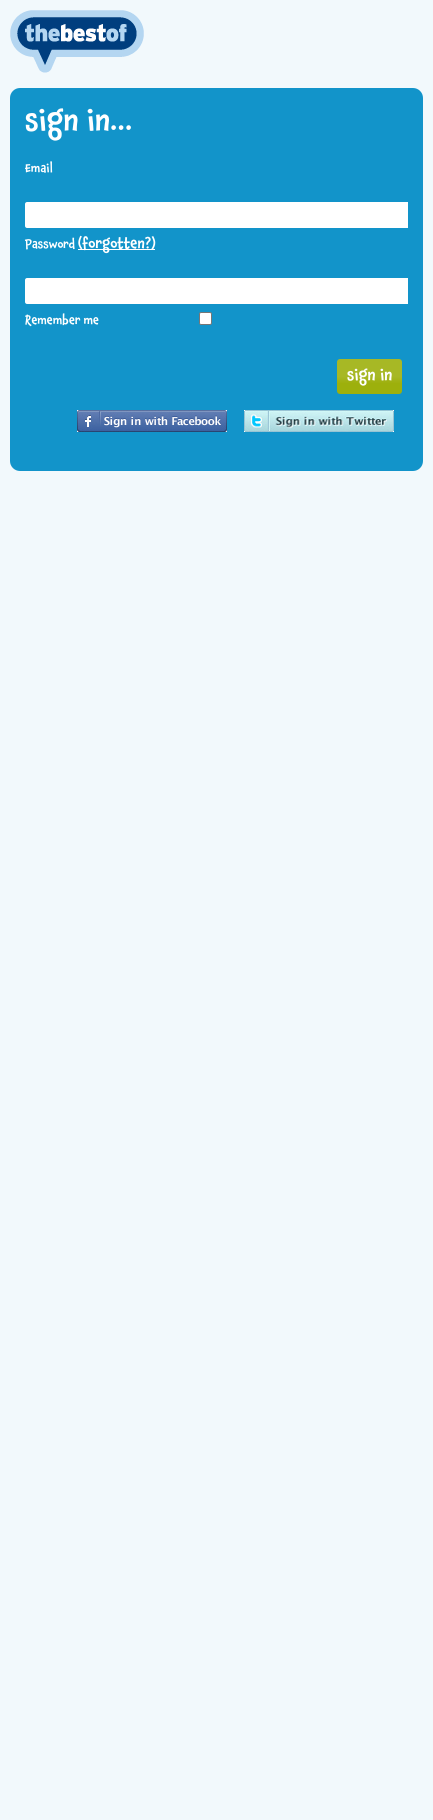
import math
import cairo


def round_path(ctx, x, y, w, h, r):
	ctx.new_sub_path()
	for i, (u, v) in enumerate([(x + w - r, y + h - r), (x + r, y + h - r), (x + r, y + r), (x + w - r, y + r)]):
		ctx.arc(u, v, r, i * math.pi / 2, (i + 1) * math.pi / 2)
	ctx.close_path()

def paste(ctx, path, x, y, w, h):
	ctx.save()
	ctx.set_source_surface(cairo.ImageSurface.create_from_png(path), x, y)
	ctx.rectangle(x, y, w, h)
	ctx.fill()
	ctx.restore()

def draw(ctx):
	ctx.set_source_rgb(0.949, 0.976, 0.988)
	ctx.paint()
	paste(ctx, 'media/1.png', 10, 10, 134, 63)
	ctx.set_source_rgb(0.071, 0.58, 0.792)
	round_path(ctx, 10, 88, 413, 383, 10)
	ctx.fill()
	ctx.select_font_face('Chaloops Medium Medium')
	ctx.set_font_size(30)
	ctx.set_source_rgb(1, 1, 1)
	ctx.move_to(25, 130)
	ctx.show_text('sign in...')
	ctx.set_font_size(12)
	ctx.move_to(25, 172)
	ctx.show_text('Email')
	ctx.new_path()
	ctx.move_to(27, 202)
	ctx.line_to(408, 202)
	ctx.line_to(408, 228)
	ctx.line_to(27, 228)
	ctx.curve_to(26, 228, 25, 227, 25, 226)
	ctx.line_to(25, 204)
	ctx.curve_to(25, 203, 26, 202, 27, 202)
	ctx.close_path()
	ctx.fill()
	ctx.move_to(25, 248)
	ctx.show_text('Password')
	ctx.rectangle(78, 249, 77, 1)
	ctx.fill()
	ctx.set_font_size(14.5)
	ctx.move_to(78, 248)
	ctx.show_text('(forgotten?)')
	ctx.new_path()
	ctx.move_to(27, 278)
	ctx.line_to(408, 278)
	ctx.line_to(408, 304)
	ctx.line_to(27, 304)
	ctx.curve_to(26, 304, 25, 303, 25, 302)
	ctx.line_to(25, 280)
	ctx.curve_to(25, 279, 26, 278, 27, 278)
	ctx.close_path()
	ctx.fill()
	ctx.set_font_size(12)
	ctx.move_to(25, 324)
	ctx.show_text('Remember me')
	round_path(ctx, 199.5, 312.5, 12, 12, 1.5)
	ctx.fill_preserve()
	ctx.set_source_rgb(0.463, 0.463, 0.463)
	ctx.set_line_width(1)
	ctx.stroke()
	gradient = cairo.LinearGradient(337, 394, 337, 359)
	gradient.add_color_stop_rgba(0.3, 0.616, 0.69, 0.047, 1)
	gradient.add_color_stop_rgba(0.5, 0.655, 0.722, 0.145, 1)
	ctx.set_source(gradient)
	round_path(ctx, 337, 359, 65, 35, 3)
	ctx.fill()
	ctx.set_font_size(16)
	ctx.set_source_rgb(1, 1, 1)
	ctx.move_to(347, 380)
	ctx.show_text('sign in')
	paste(ctx, 'media/2.png', 77, 410, 150, 22)
	paste(ctx, 'media/3.png', 244, 410, 150, 22)


surface = cairo.ImageSurface(cairo.FORMAT_RGB24, 433, 1820)
ctx = cairo.Context(surface)
options = cairo.FontOptions()
options.set_hint_metrics(cairo.HINT_METRICS_OFF)
options.set_hint_style(cairo.HINT_STYLE_NONE)
ctx.set_font_options(options)
ctx.set_miter_limit(4)
draw(ctx)
surface.write_to_png('image.png')
